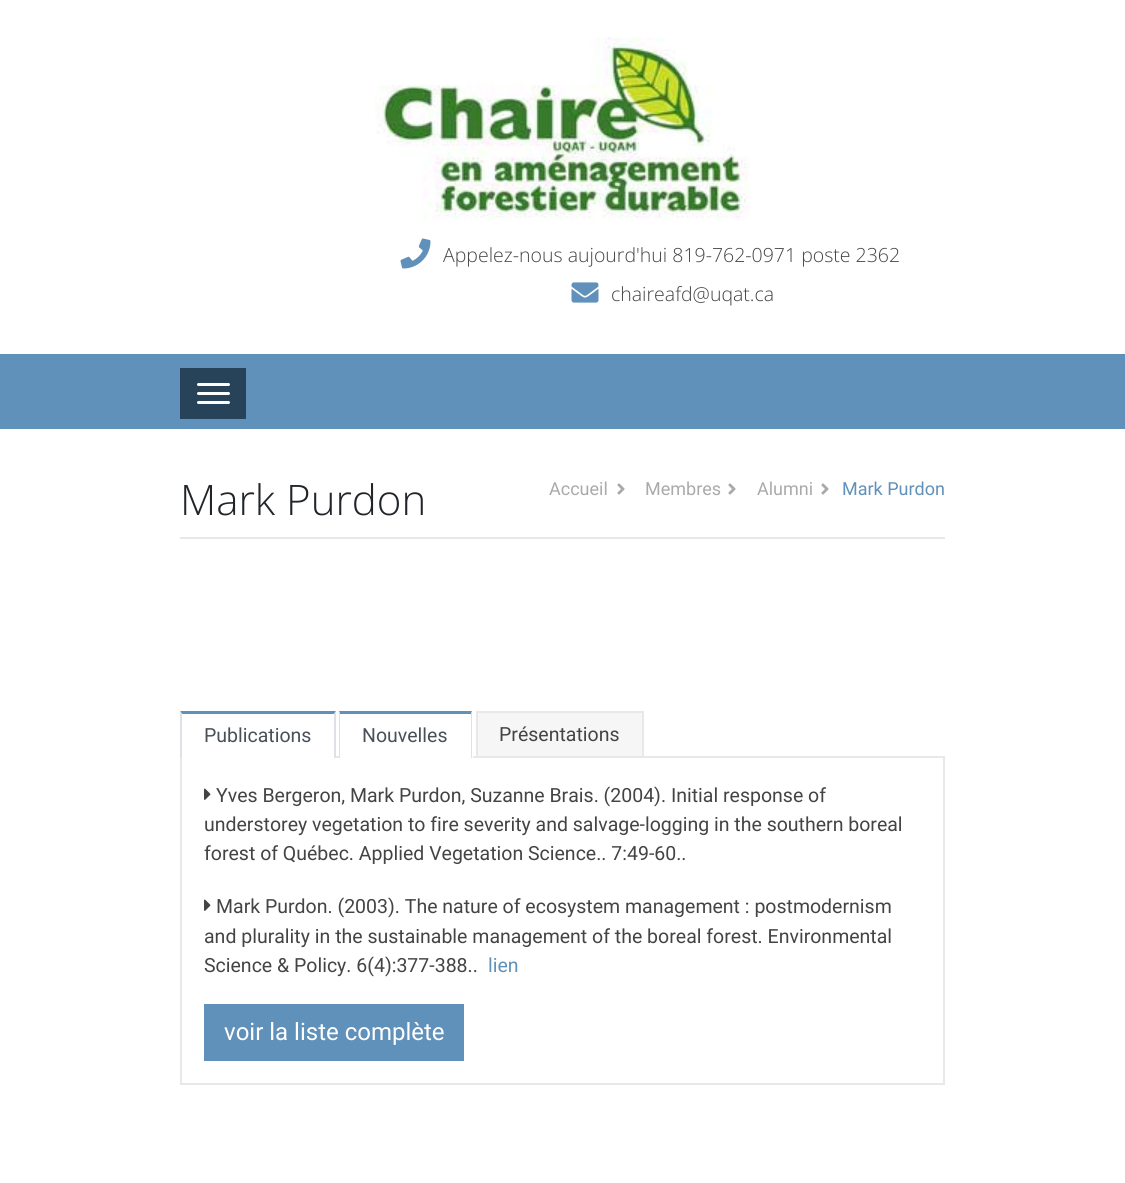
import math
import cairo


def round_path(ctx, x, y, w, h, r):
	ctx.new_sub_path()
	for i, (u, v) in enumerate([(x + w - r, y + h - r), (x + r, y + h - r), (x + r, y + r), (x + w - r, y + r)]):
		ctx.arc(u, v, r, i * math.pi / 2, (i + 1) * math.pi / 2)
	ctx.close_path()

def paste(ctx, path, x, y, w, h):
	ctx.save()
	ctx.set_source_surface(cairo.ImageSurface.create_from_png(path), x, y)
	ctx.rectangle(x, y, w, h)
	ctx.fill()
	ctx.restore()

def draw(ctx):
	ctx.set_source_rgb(1, 1, 1)
	ctx.paint()
	paste(ctx, 'media/1.png', 375, 37, 375, 184)
	paste(ctx, 'media/2.png', 400, 238, 31, 31)
	ctx.select_font_face('Open Sans Light')
	ctx.set_font_size(19.5)
	ctx.set_source_rgb(0.267, 0.267, 0.267)
	ctx.move_to(443, 262)
	ctx.show_text('Appelez-nous aujourd\'hui 819-762-0971 poste 2362')
	paste(ctx, 'media/3.png', 571, 282, 28, 21)
	ctx.move_to(611, 301)
	ctx.show_text('chaireafd@uqat.ca')
	ctx.set_source_rgb(0.376, 0.569, 0.729)
	ctx.rectangle(0, 354, 1125, 75)
	ctx.fill()
	ctx.set_source_rgb(0.153, 0.263, 0.353)
	ctx.rectangle(180, 368, 66, 51)
	ctx.fill()
	ctx.set_source_rgb(1, 1, 1)
	round_path(ctx, 197, 383, 33, 3, 1.5)
	ctx.fill()
	round_path(ctx, 197, 392, 33, 3, 1.5)
	ctx.fill()
	round_path(ctx, 197, 401, 33, 3, 1.5)
	ctx.fill()
	ctx.set_source_rgb(0.91, 0.91, 0.91)
	ctx.rectangle(180, 537, 765, 2)
	ctx.fill()
	ctx.set_font_size(42)
	ctx.set_source_rgb(0.129, 0.145, 0.161)
	ctx.move_to(180, 515)
	ctx.show_text('Mark Purdon')
	ctx.select_font_face('Roboto')
	ctx.set_font_size(18)
	ctx.set_source_rgb(0.667, 0.667, 0.667)
	ctx.move_to(549, 495)
	ctx.show_text('Accueil')
	paste(ctx, 'media/4.png', 617, 483, 8, 12)
	ctx.move_to(645, 495)
	ctx.show_text('Membres')
	paste(ctx, 'media/4.png', 728, 483, 8, 12)
	ctx.move_to(757, 495)
	ctx.show_text('Alumni')
	paste(ctx, 'media/4.png', 821, 483, 8, 12)
	ctx.set_source_rgb(0.376, 0.569, 0.729)
	ctx.move_to(842, 495)
	ctx.show_text('Mark Purdon')
	ctx.rectangle(181, 757, 763, 327)
	ctx.set_source_rgb(0.91, 0.91, 0.91)
	ctx.stroke()
	ctx.set_source_rgb(1, 1, 1)
	ctx.rectangle(180, 756, 156, 2)
	ctx.fill()
	ctx.set_source_rgb(0.376, 0.569, 0.729)
	ctx.new_path()
	ctx.move_to(180, 711)
	ctx.line_to(336, 711)
	ctx.line_to(334, 714)
	ctx.line_to(182, 714)
	ctx.close_path()
	ctx.fill()
	ctx.set_source_rgb(0.871, 0.886, 0.902)
	ctx.new_path()
	ctx.move_to(336, 711)
	ctx.line_to(336, 758)
	ctx.line_to(334, 758)
	ctx.line_to(334, 714)
	ctx.close_path()
	ctx.fill()
	ctx.new_path()
	ctx.move_to(180, 758)
	ctx.line_to(180, 711)
	ctx.line_to(182, 714)
	ctx.line_to(182, 758)
	ctx.close_path()
	ctx.fill()
	ctx.set_font_size(19.5)
	ctx.set_source_rgb(0.286, 0.314, 0.341)
	ctx.move_to(204, 742)
	ctx.show_text('Publications')
	ctx.set_source_rgb(1, 1, 1)
	ctx.rectangle(339, 756, 134, 2)
	ctx.fill()
	ctx.set_source_rgb(0.376, 0.569, 0.729)
	ctx.new_path()
	ctx.move_to(339, 711)
	ctx.line_to(472, 711)
	ctx.line_to(471, 714)
	ctx.line_to(340, 714)
	ctx.close_path()
	ctx.fill()
	ctx.set_source_rgb(0.871, 0.886, 0.902)
	ctx.new_path()
	ctx.move_to(472, 711)
	ctx.line_to(472, 758)
	ctx.line_to(471, 758)
	ctx.line_to(471, 714)
	ctx.close_path()
	ctx.fill()
	ctx.new_path()
	ctx.move_to(339, 758)
	ctx.line_to(339, 711)
	ctx.line_to(340, 714)
	ctx.line_to(340, 758)
	ctx.close_path()
	ctx.fill()
	ctx.set_source_rgb(0.286, 0.314, 0.341)
	ctx.move_to(362, 742)
	ctx.show_text('Nouvelles')
	ctx.set_source_rgb(0.961, 0.961, 0.961)
	ctx.rectangle(478, 713, 164, 43)
	ctx.fill()
	ctx.set_source_rgb(0.91, 0.91, 0.91)
	ctx.rectangle(476, 711, 168, 2)
	ctx.rectangle(642, 711, 2, 45)
	ctx.rectangle(476, 711, 2, 45)
	ctx.fill()
	ctx.set_source_rgb(0.267, 0.267, 0.267)
	ctx.move_to(499, 741)
	ctx.show_text('Présentations')
	paste(ctx, 'media/5.png', 204, 788, 7, 12)
	for x, y, s in [
		(216, 802, 'Yves Bergeron, Mark Purdon, Suzanne Brais. (2004). Initial response of'),
		(204, 831, 'understorey vegetation to fire severity and salvage-logging in the southern boreal'),
		(204, 860, 'forest of Québec. Applied Vegetation Science.. 7:49-60..'),
	]:
		ctx.move_to(x, y)
		ctx.show_text(s)
	paste(ctx, 'media/5.png', 204, 899, 7, 12)
	for x, y, s in [
		(216, 913, 'Mark Purdon. (2003). The nature of ecosystem management : postmodernism'),
		(204, 943, 'and plurality in the sustainable management of the boreal forest. Environmental'),
		(204, 972, 'Science & Policy. 6(4):377-388..'),
	]:
		ctx.move_to(x, y)
		ctx.show_text(s)
	ctx.set_source_rgb(0.376, 0.569, 0.729)
	ctx.move_to(488, 972)
	ctx.show_text('lien')
	ctx.rectangle(204, 1004, 260, 57)
	ctx.fill()
	ctx.set_font_size(24)
	ctx.set_source_rgb(1, 1, 1)
	ctx.move_to(224, 1040)
	ctx.show_text('voir la liste complète')


surface = cairo.ImageSurface(cairo.FORMAT_RGB24, 1125, 1183)
ctx = cairo.Context(surface)
options = cairo.FontOptions()
options.set_hint_metrics(cairo.HINT_METRICS_OFF)
options.set_hint_style(cairo.HINT_STYLE_NONE)
ctx.set_font_options(options)
ctx.set_miter_limit(4)
draw(ctx)
surface.write_to_png('image.png')
